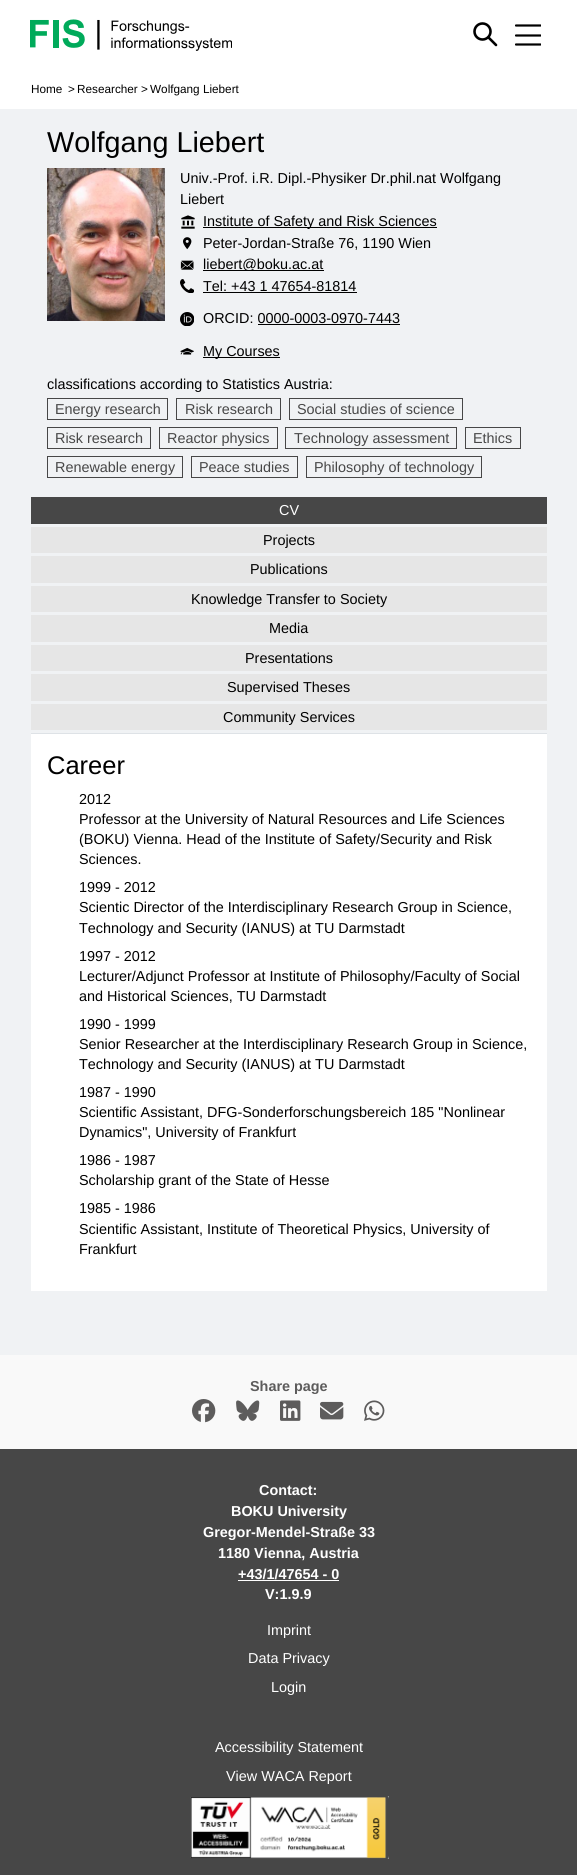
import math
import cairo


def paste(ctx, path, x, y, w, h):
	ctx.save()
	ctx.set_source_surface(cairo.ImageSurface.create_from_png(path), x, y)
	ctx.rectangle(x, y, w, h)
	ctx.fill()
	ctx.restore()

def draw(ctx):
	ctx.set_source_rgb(1, 1, 1)
	ctx.paint()
	paste(ctx, 'media/1.png', 30, 19, 202, 32)
	ctx.new_path()
	ctx.move_to(488.5, 37.5)
	ctx.line_to(496, 45)
	ctx.set_source_rgb(0, 0, 0)
	ctx.set_line_width(2.6)
	ctx.set_line_cap(cairo.LINE_CAP_ROUND)
	ctx.set_line_join(cairo.LINE_JOIN_ROUND)
	ctx.stroke()
	ctx.arc(482.5, 31.5, 8, 0, 2 * math.pi)
	ctx.set_line_cap(cairo.LINE_CAP_BUTT)
	ctx.set_line_join(cairo.LINE_JOIN_MITER)
	ctx.stroke()
	ctx.save()
	ctx.rectangle(515, 0, 26, 70)
	ctx.clip()
	ctx.new_path()
	ctx.move_to(516, 25.5)
	ctx.line_to(540.5, 25.5)
	ctx.move_to(516, 35.5)
	ctx.line_to(540.5, 35.5)
	ctx.move_to(516, 44.5)
	ctx.line_to(540.5, 44.5)
	ctx.set_line_width(2.2)
	ctx.set_line_cap(cairo.LINE_CAP_ROUND)
	ctx.stroke()
	ctx.restore()
	ctx.set_source_rgb(0.941, 0.949, 0.957)
	ctx.rectangle(0, 109, 577, 1246)
	ctx.fill()
	ctx.select_font_face('Liberation Sans')
	ctx.set_font_size(11.75)
	ctx.set_source_rgb(0, 0, 0)
	for x, y, s in [
		(31, 93, 'Home'),
		(68, 93, '>'),
		(77, 93, 'Researcher'),
		(141, 93, '>'),
		(150, 93, 'Wolfgang Liebert'),
	]:
		ctx.move_to(x, y)
		ctx.show_text(s)
	ctx.set_font_size(28.75)
	ctx.move_to(47, 152)
	ctx.show_text('Wolfgang Liebert')
	paste(ctx, 'media/2.png', 47, 168, 118, 153)
	ctx.set_font_size(14.4)
	ctx.move_to(180, 183)
	ctx.show_text('Univ.-Prof. i.R. Dipl.-Physiker Dr.phil.nat Wolfgang')
	ctx.move_to(180, 204)
	ctx.show_text('Liebert')
	paste(ctx, 'media/3.png', 181, 215, 14, 14)
	ctx.rectangle(203, 227, 234, 1)
	ctx.fill()
	ctx.move_to(203, 226)
	ctx.show_text('Institute of Safety and Risk Sciences')
	paste(ctx, 'media/4.png', 183, 237, 9, 13)
	ctx.move_to(203, 248)
	ctx.show_text('Peter-Jordan-Straße 76, 1190 Wien')
	paste(ctx, 'media/5.png', 180, 260, 14, 10)
	ctx.rectangle(203, 270, 121, 1)
	ctx.fill()
	ctx.move_to(203, 269)
	ctx.show_text('liebert@boku.ac.at')
	paste(ctx, 'media/6.png', 180, 279, 14, 14)
	ctx.move_to(203, 291)
	ctx.show_text('Tel: +43 1 47654-81814')
	ctx.rectangle(203, 292, 154, 1)
	ctx.fill()
	paste(ctx, 'media/7.png', 180, 312, 14, 14)
	ctx.move_to(203, 323)
	ctx.show_text('ORCID: 0000-0003-0970-7443')
	ctx.rectangle(258, 324, 142, 1)
	ctx.fill()
	paste(ctx, 'media/8.png', 180, 347, 14, 8)
	ctx.rectangle(203, 357, 77, 1)
	ctx.fill()
	ctx.move_to(203, 356)
	ctx.show_text('My Courses')
	ctx.move_to(47, 389)
	ctx.show_text('classifications according to Statistics Austria:')
	ctx.rectangle(47.5, 398.5, 120, 21)
	ctx.set_source_rgb(0.278, 0.278, 0.278)
	ctx.set_line_width(1)
	ctx.stroke()
	ctx.move_to(55, 414)
	ctx.show_text('Energy research')
	ctx.rectangle(176.5, 398.5, 104, 21)
	ctx.stroke()
	ctx.move_to(185, 414)
	ctx.show_text('Risk research')
	ctx.rectangle(289.5, 398.5, 173, 21)
	ctx.stroke()
	ctx.move_to(297, 414)
	ctx.show_text('Social studies of science')
	ctx.rectangle(47.5, 427.5, 103, 21)
	ctx.stroke()
	ctx.move_to(55, 443)
	ctx.show_text('Risk research')
	ctx.rectangle(159.5, 427.5, 118, 21)
	ctx.stroke()
	ctx.move_to(167, 443)
	ctx.show_text('Reactor physics')
	ctx.rectangle(285.5, 427.5, 171, 21)
	ctx.stroke()
	ctx.move_to(294, 443)
	ctx.show_text('Technology assessment')
	ctx.rectangle(465.5, 427.5, 55, 21)
	ctx.stroke()
	ctx.move_to(473, 443)
	ctx.show_text('Ethics')
	ctx.rectangle(47.5, 456.5, 135, 21)
	ctx.stroke()
	ctx.move_to(55, 472)
	ctx.show_text('Renewable energy')
	ctx.rectangle(191.5, 456.5, 106, 21)
	ctx.stroke()
	ctx.move_to(199, 472)
	ctx.show_text('Peace studies')
	ctx.rectangle(306.5, 456.5, 175, 21)
	ctx.stroke()
	ctx.move_to(314, 472)
	ctx.show_text('Philosophy of technology')
	ctx.set_source_rgb(0.871, 0.886, 0.902)
	ctx.rectangle(31, 733, 516, 1)
	ctx.fill()
	ctx.set_source_rgb(0.278, 0.278, 0.278)
	ctx.rectangle(31, 497, 516, 27)
	ctx.fill()
	ctx.set_source_rgb(1, 1, 1)
	ctx.move_to(279, 515)
	ctx.show_text('CV')
	ctx.set_source_rgb(0.902, 0.902, 0.902)
	ctx.rectangle(31, 527, 516, 26)
	ctx.fill()
	ctx.set_source_rgb(0, 0, 0)
	ctx.move_to(263, 545)
	ctx.show_text('Projects')
	ctx.set_source_rgb(0.902, 0.902, 0.902)
	ctx.rectangle(31, 556, 516, 27)
	ctx.fill()
	ctx.set_source_rgb(0, 0, 0)
	ctx.move_to(250, 574)
	ctx.show_text('Publications')
	ctx.set_source_rgb(0.902, 0.902, 0.902)
	ctx.rectangle(31, 586, 516, 26)
	ctx.fill()
	ctx.set_source_rgb(0, 0, 0)
	ctx.move_to(191, 604)
	ctx.show_text('Knowledge Transfer to Society')
	ctx.set_source_rgb(0.902, 0.902, 0.902)
	ctx.rectangle(31, 615, 516, 27)
	ctx.fill()
	ctx.set_source_rgb(0, 0, 0)
	ctx.move_to(269, 633)
	ctx.show_text('Media')
	ctx.set_source_rgb(0.902, 0.902, 0.902)
	ctx.rectangle(31, 645, 516, 26)
	ctx.fill()
	ctx.set_source_rgb(0, 0, 0)
	ctx.move_to(245, 663)
	ctx.show_text('Presentations')
	ctx.set_source_rgb(0.902, 0.902, 0.902)
	ctx.rectangle(31, 674, 516, 27)
	ctx.fill()
	ctx.set_source_rgb(0, 0, 0)
	ctx.move_to(227, 692)
	ctx.show_text('Supervised Theses')
	ctx.set_source_rgb(0.902, 0.902, 0.902)
	ctx.rectangle(31, 704, 516, 26)
	ctx.fill()
	ctx.set_source_rgb(0, 0, 0)
	ctx.move_to(223, 722)
	ctx.show_text('Community Services')
	ctx.set_source_rgb(1, 1, 1)
	ctx.rectangle(31, 734, 516, 557)
	ctx.fill()
	ctx.set_font_size(25.5)
	ctx.set_source_rgb(0, 0, 0)
	ctx.move_to(47, 774)
	ctx.show_text('Career')
	ctx.set_font_size(14.4)
	for x, y, s in [
		(79, 804, '2012'),
		(79, 824, 'Professor at the University of Natural Resources and Life Sciences'),
		(79, 844, '(BOKU) Vienna. Head of the Institute of Safety/Security and Risk'),
		(79, 864, 'Sciences.'),
		(79, 892, '1999 - 2012'),
		(79, 912, 'Scientic Director of the Interdisciplinary Research Group in Science,'),
		(79, 933, 'Technology and Security (IANUS) at TU Darmstadt'),
		(79, 961, '1997 - 2012'),
		(79, 981, 'Lecturer/Adjunct Professor at Institute of Philosophy/Faculty of Social'),
		(79, 1001, 'and Historical Sciences, TU Darmstadt'),
		(79, 1029, '1990 - 1999'),
		(79, 1049, 'Senior Researcher at the Interdisciplinary Research Group in Science,'),
		(79, 1069, 'Technology and Security (IANUS) at TU Darmstadt'),
		(79, 1097, '1987 - 1990'),
		(79, 1117, 'Scientific Assistant, DFG-Sonderforschungsbereich 185 "Nonlinear'),
		(79, 1137, 'Dynamics", University of Frankfurt'),
		(79, 1165, '1986 - 1987'),
		(79, 1185, 'Scholarship grant of the State of Hesse'),
		(79, 1213, '1985 - 1986'),
		(79, 1234, 'Scientific Assistant, Institute of Theoretical Physics, University of'),
		(79, 1254, 'Frankfurt'),
	]:
		ctx.move_to(x, y)
		ctx.show_text(s)
	ctx.set_source_rgb(0.973, 0.973, 0.973)
	ctx.rectangle(0, 1355, 577, 94)
	ctx.fill()
	ctx.select_font_face('Liberation Sans', cairo.FONT_SLANT_NORMAL, cairo.FONT_WEIGHT_BOLD)
	ctx.set_source_rgb(0.365, 0.361, 0.361)
	ctx.move_to(250, 1391)
	ctx.show_text('Share page')
	paste(ctx, 'media/9.png', 192, 1399, 24, 24)
	paste(ctx, 'media/10.png', 236, 1400, 24, 21)
	paste(ctx, 'media/11.png', 280, 1400, 21, 21)
	paste(ctx, 'media/12.png', 320, 1401, 24, 19)
	paste(ctx, 'media/13.png', 364, 1400, 21, 21)
	ctx.set_source_rgb(0.278, 0.278, 0.278)
	ctx.rectangle(0, 1449, 577, 426)
	ctx.fill()
	ctx.set_source_rgb(1, 1, 1)
	for x, y, s in [
		(259, 1495, 'Contact:'),
		(231, 1516, 'BOKU University'),
		(203, 1537, 'Gregor-Mendel-Straße 33'),
		(218, 1558, '1180 Vienna, Austria'),
		(238, 1579, '+43/1/47654 - 0'),
	]:
		ctx.move_to(x, y)
		ctx.show_text(s)
	ctx.rectangle(238, 1580, 101, 1)
	ctx.fill()
	ctx.move_to(265, 1599)
	ctx.show_text('V:1.9.9')
	ctx.select_font_face('Liberation Sans')
	for x, y, s in [
		(267, 1635, 'Imprint'),
		(248, 1663, 'Data Privacy'),
		(271, 1692, 'Login'),
		(215, 1752, 'Accessibility Statement'),
		(226, 1781, 'View WACA Report'),
	]:
		ctx.move_to(x, y)
		ctx.show_text(s)
	paste(ctx, 'media/14.png', 190, 1796, 199, 63)


surface = cairo.ImageSurface(cairo.FORMAT_RGB24, 577, 1875)
ctx = cairo.Context(surface)
options = cairo.FontOptions()
options.set_hint_metrics(cairo.HINT_METRICS_OFF)
options.set_hint_style(cairo.HINT_STYLE_NONE)
ctx.set_font_options(options)
ctx.set_miter_limit(4)
draw(ctx)
surface.write_to_png('image.png')
